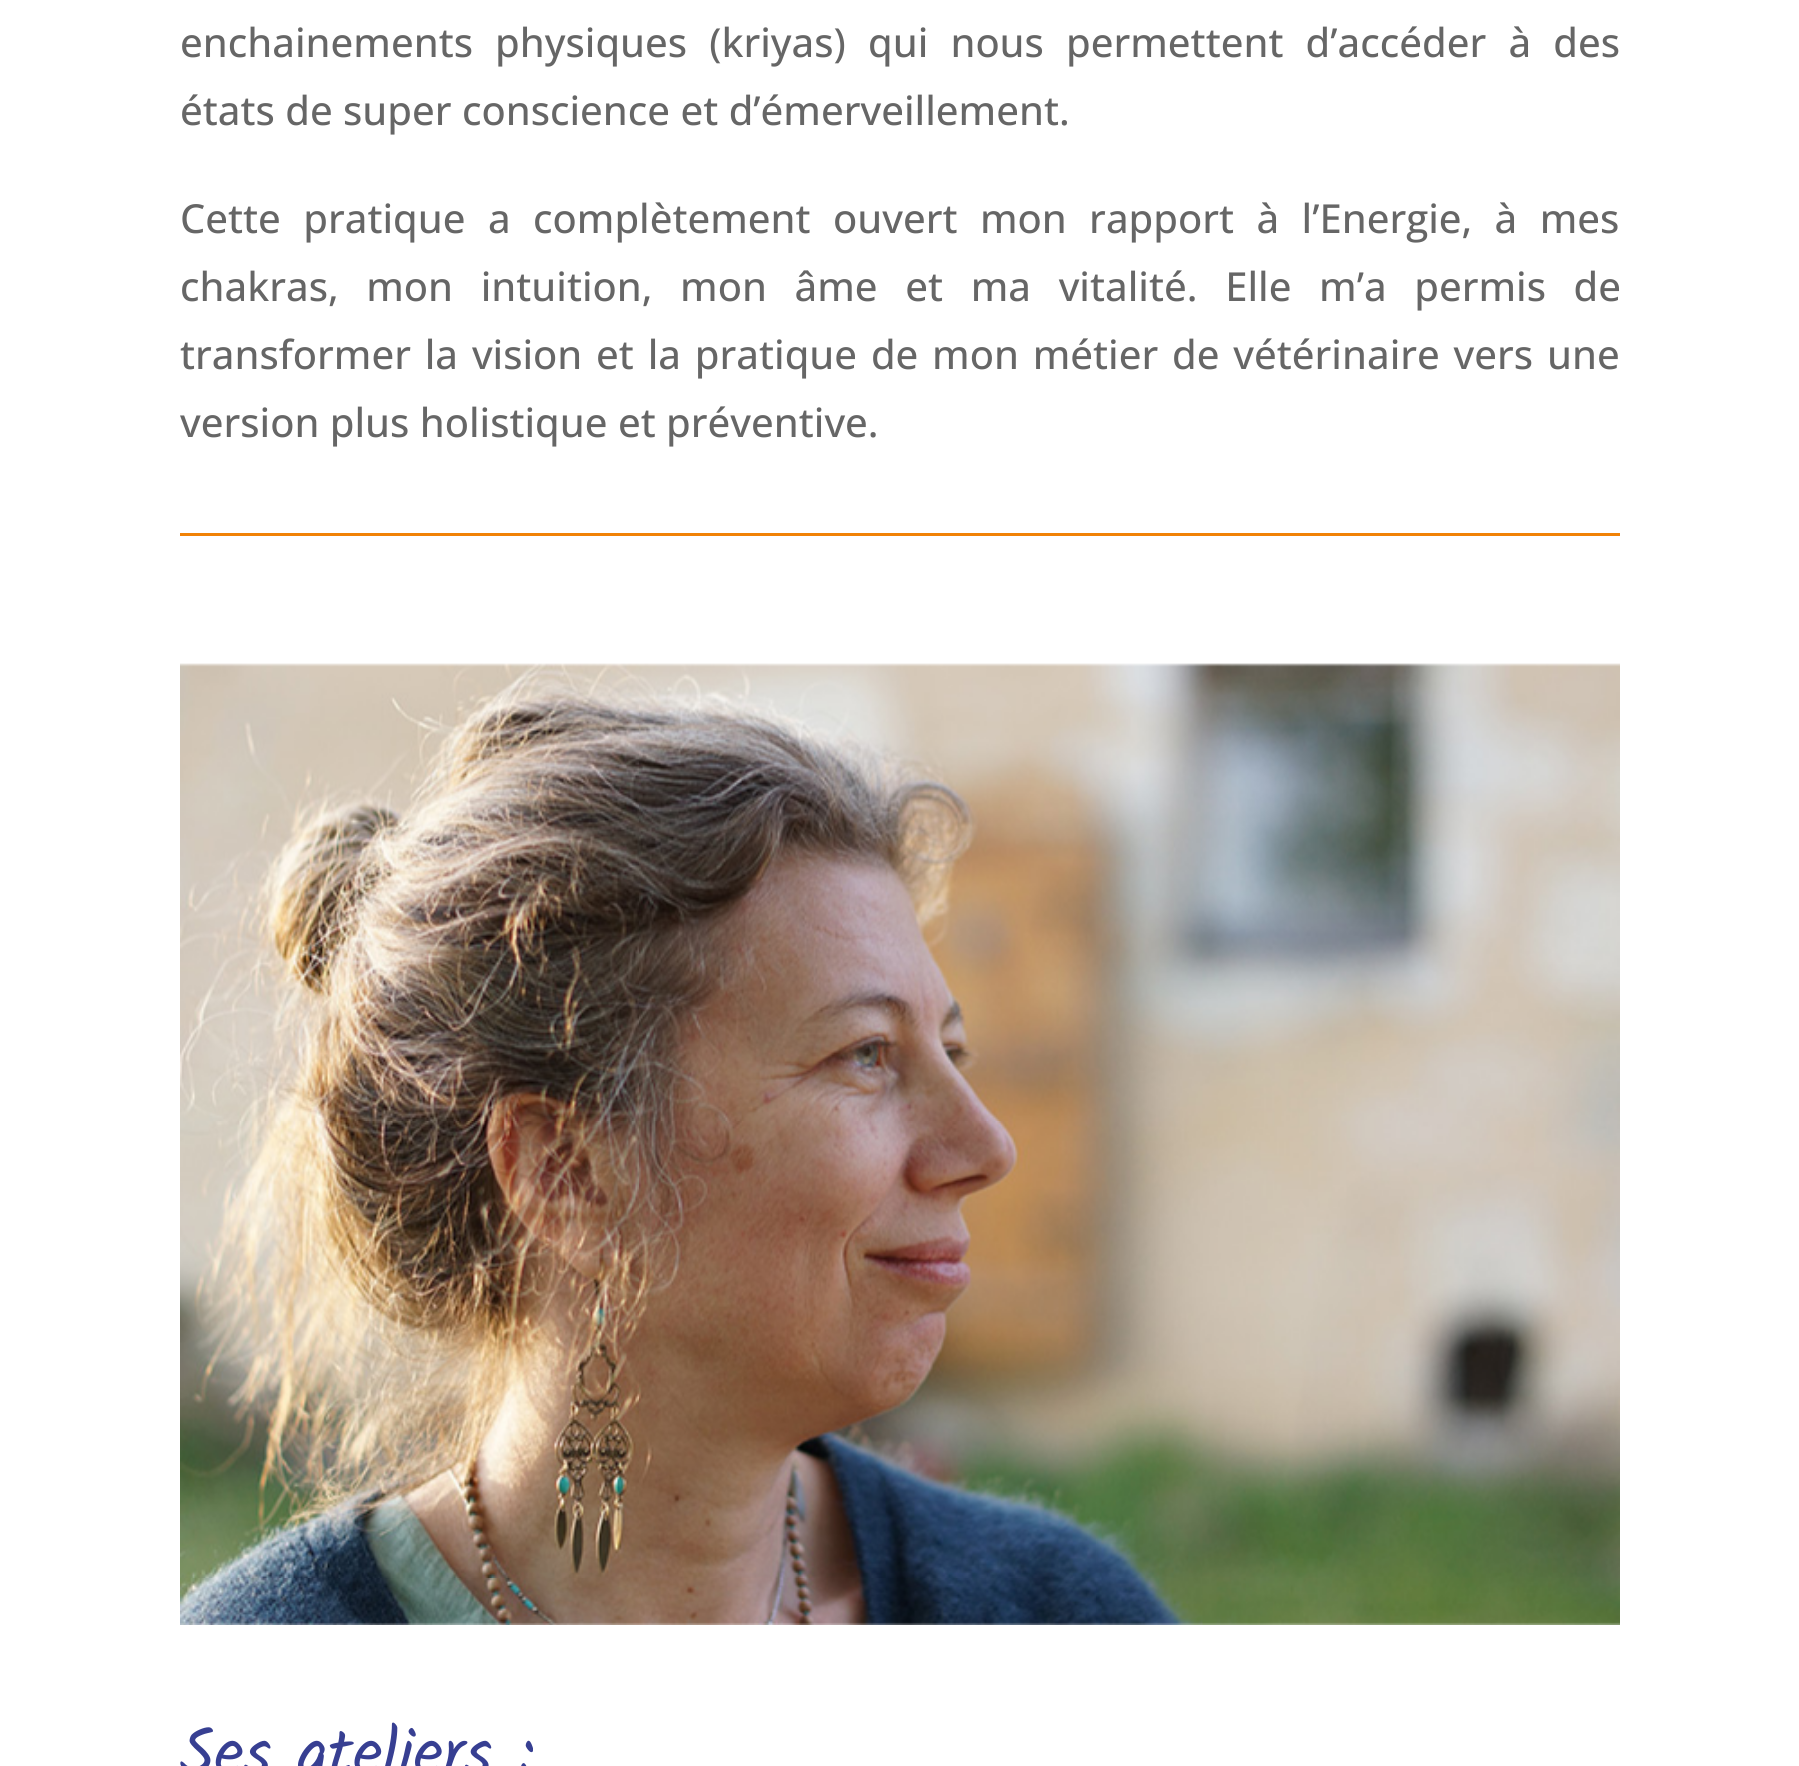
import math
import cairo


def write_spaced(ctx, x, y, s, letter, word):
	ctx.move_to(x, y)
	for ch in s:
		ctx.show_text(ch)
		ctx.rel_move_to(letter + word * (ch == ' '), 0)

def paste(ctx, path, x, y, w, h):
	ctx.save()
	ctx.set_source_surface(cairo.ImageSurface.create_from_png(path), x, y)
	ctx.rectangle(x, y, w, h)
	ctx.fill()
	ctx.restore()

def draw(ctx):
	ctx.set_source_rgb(1, 1, 1)
	ctx.paint()
	ctx.select_font_face('Open Sans Medium')
	ctx.set_font_size(40)
	ctx.set_source_rgb(0.4, 0.4, 0.4)
	write_spaced(ctx, 180, 57, 'enchainements physiques (kriyas) qui nous permettent d’accéder à des', 0, 11.75)
	ctx.move_to(180, 125)
	ctx.show_text('états de super conscience et d’émerveillement.')
	write_spaced(ctx, 180, 233, 'Cette pratique a complètement ouvert mon rapport à l’Energie, à mes', 0, 12)
	write_spaced(ctx, 180, 301, 'chakras, mon intuition, mon âme et ma vitalité. Elle m’a permis de', 0, 17.25)
	write_spaced(ctx, 180, 369, 'transformer la vision et la pratique de mon métier de vétérinaire vers une', 0, 3.4)
	ctx.move_to(180, 437)
	ctx.show_text('version plus holistique et préventive.')
	ctx.set_source_rgb(0.945, 0.51, 0.027)
	ctx.rectangle(180, 533, 1440, 3)
	ctx.fill()
	paste(ctx, 'media/1.png', 180, 663, 1440, 962)
	ctx.select_font_face('Kalam')
	ctx.set_font_size(65)
	ctx.set_source_rgb(0.216, 0.247, 0.573)
	ctx.move_to(180, 1774)
	ctx.show_text('Ses ateliers :')


surface = cairo.ImageSurface(cairo.FORMAT_RGB24, 1799, 1766)
ctx = cairo.Context(surface)
options = cairo.FontOptions()
options.set_hint_metrics(cairo.HINT_METRICS_OFF)
options.set_hint_style(cairo.HINT_STYLE_NONE)
ctx.set_font_options(options)
ctx.set_miter_limit(4)
draw(ctx)
surface.write_to_png('image.png')
